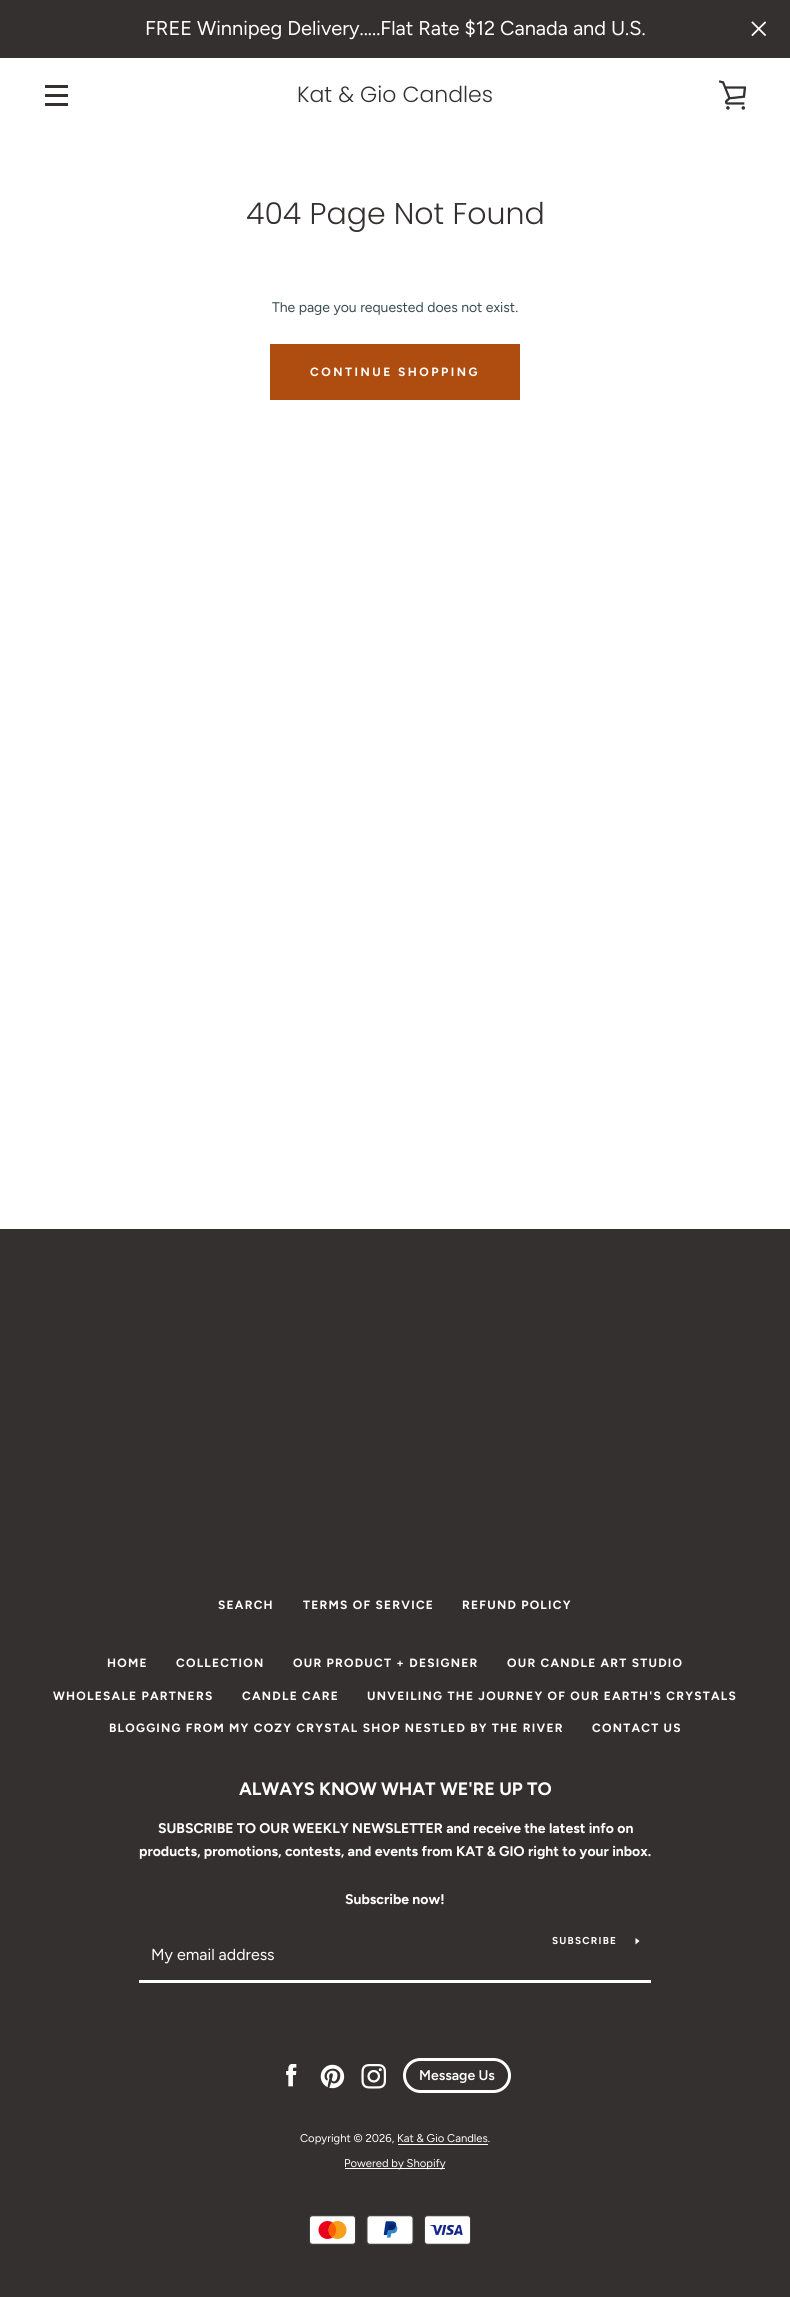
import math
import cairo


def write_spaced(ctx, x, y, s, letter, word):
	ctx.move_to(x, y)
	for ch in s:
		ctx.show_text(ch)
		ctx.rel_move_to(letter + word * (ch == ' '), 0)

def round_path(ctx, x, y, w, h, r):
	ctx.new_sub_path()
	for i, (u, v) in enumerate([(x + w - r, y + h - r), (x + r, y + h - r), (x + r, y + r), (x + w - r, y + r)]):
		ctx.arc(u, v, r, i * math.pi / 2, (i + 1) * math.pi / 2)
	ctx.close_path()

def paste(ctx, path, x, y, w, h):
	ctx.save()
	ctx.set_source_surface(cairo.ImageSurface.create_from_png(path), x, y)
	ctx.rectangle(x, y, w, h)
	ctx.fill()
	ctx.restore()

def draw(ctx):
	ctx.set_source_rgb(0.204, 0.188, 0.188)
	ctx.paint()
	ctx.set_source_rgb(1, 1, 1)
	ctx.rectangle(0, 58, 790, 1171)
	ctx.fill()
	ctx.select_font_face('Figtree')
	ctx.set_font_size(20)
	ctx.move_to(145, 35)
	ctx.show_text('FREE Winnipeg Delivery.....Flat Rate $12 Canada and U.S.')
	paste(ctx, 'media/1.png', 751, 21, 15, 15)
	ctx.set_source_rgb(0.204, 0.188, 0.188)
	ctx.rectangle(45, 85, 23, 3)
	ctx.rectangle(45, 94, 23, 3)
	ctx.rectangle(45, 103, 23, 3)
	ctx.fill()
	ctx.select_font_face('Poppins Light')
	ctx.set_font_size(22)
	ctx.move_to(297, 102)
	ctx.show_text('Kat & Gio Candles')
	paste(ctx, 'media/2.png', 719, 80, 27, 30)
	ctx.set_font_size(30)
	ctx.move_to(246, 224)
	ctx.show_text('404 Page Not Found')
	ctx.select_font_face('Figtree')
	ctx.set_font_size(14)
	ctx.set_source_rgb(0.216, 0.298, 0.314)
	ctx.move_to(272, 312)
	ctx.show_text('The page you requested does not exist.')
	ctx.set_source_rgb(0.686, 0.298, 0.059)
	ctx.rectangle(270, 344, 250, 56)
	ctx.fill()
	ctx.select_font_face('Figtree', cairo.FONT_SLANT_NORMAL, cairo.FONT_WEIGHT_BOLD)
	ctx.set_font_size(12)
	ctx.set_source_rgb(1, 1, 1)
	write_spaced(ctx, 310, 376, 'CONTINUE SHOPPING', 2.5, 0)
	for x, y, s in [
		(218, 1609, 'SEARCH'),
		(303, 1609, 'TERMS OF SERVICE'),
		(462, 1609, 'REFUND POLICY'),
		(107, 1667, 'HOME'),
		(176, 1667, 'COLLECTION'),
		(293, 1667, 'OUR PRODUCT + DESIGNER'),
		(507, 1667, 'OUR CANDLE ART STUDIO'),
		(53, 1700, 'WHOLESALE PARTNERS'),
		(242, 1700, 'CANDLE CARE'),
		(367, 1700, 'UNVEILING THE JOURNEY OF OUR EARTH\'S CRYSTALS'),
		(109, 1732, 'BLOGGING FROM MY COZY CRYSTAL SHOP NESTLED BY THE RIVER'),
		(592, 1732, 'CONTACT US'),
	]:
		write_spaced(ctx, x, y, s, 1.25, 0)
	ctx.set_font_size(18)
	ctx.move_to(239, 1795)
	ctx.show_text('ALWAYS KNOW WHAT WE\'RE UP TO')
	ctx.set_font_size(14)
	for x, y, s in [
		(158, 1833, 'SUBSCRIBE TO OUR WEEKLY NEWSLETTER and receive the latest info on'),
		(139, 1856, 'products, promotions, contests, and events from KAT & GIO right to your inbox.'),
		(345, 1904, 'Subscribe now!'),
	]:
		ctx.move_to(x, y)
		ctx.show_text(s)
	ctx.rectangle(139, 1980, 512, 3)
	ctx.fill()
	ctx.set_font_size(10)
	write_spaced(ctx, 552, 1944, 'SUBSCRIBE', 1.25, 0)
	ctx.new_path()
	ctx.move_to(639.5, 1941)
	ctx.line_to(635.5, 1944.5)
	ctx.line_to(635.5, 1938)
	ctx.close_path()
	ctx.fill()
	ctx.select_font_face('Figtree')
	ctx.set_font_size(16)
	ctx.move_to(151, 1960)
	ctx.show_text('My email address')
	paste(ctx, 'media/3.png', 286, 2064, 11, 23)
	paste(ctx, 'media/4.png', 320, 2064, 25, 25)
	paste(ctx, 'media/5.png', 361, 2064, 25, 25)
	round_path(ctx, 404.5, 2059.5, 105, 32, 16)
	ctx.set_line_width(3)
	ctx.stroke()
	ctx.select_font_face('Figtree SemiBold')
	ctx.set_font_size(14)
	ctx.move_to(419, 2080)
	ctx.show_text('Message Us')
	ctx.select_font_face('Figtree')
	ctx.set_font_size(11.25)
	ctx.move_to(300, 2142)
	ctx.show_text('Copyright © 2026, Kat & Gio Candles.')
	ctx.rectangle(398, 2144, 90, 1)
	ctx.fill()
	ctx.rectangle(345, 2168, 100, 1)
	ctx.fill()
	ctx.move_to(344, 2167)
	ctx.show_text('Powered by Shopify')
	paste(ctx, 'media/6.png', 309, 2215, 47, 30)
	paste(ctx, 'media/7.png', 366, 2215, 48, 30)
	paste(ctx, 'media/8.png', 424, 2215, 47, 30)


surface = cairo.ImageSurface(cairo.FORMAT_RGB24, 790, 2297)
ctx = cairo.Context(surface)
options = cairo.FontOptions()
options.set_hint_metrics(cairo.HINT_METRICS_OFF)
options.set_hint_style(cairo.HINT_STYLE_NONE)
ctx.set_font_options(options)
ctx.set_miter_limit(4)
draw(ctx)
surface.write_to_png('image.png')
